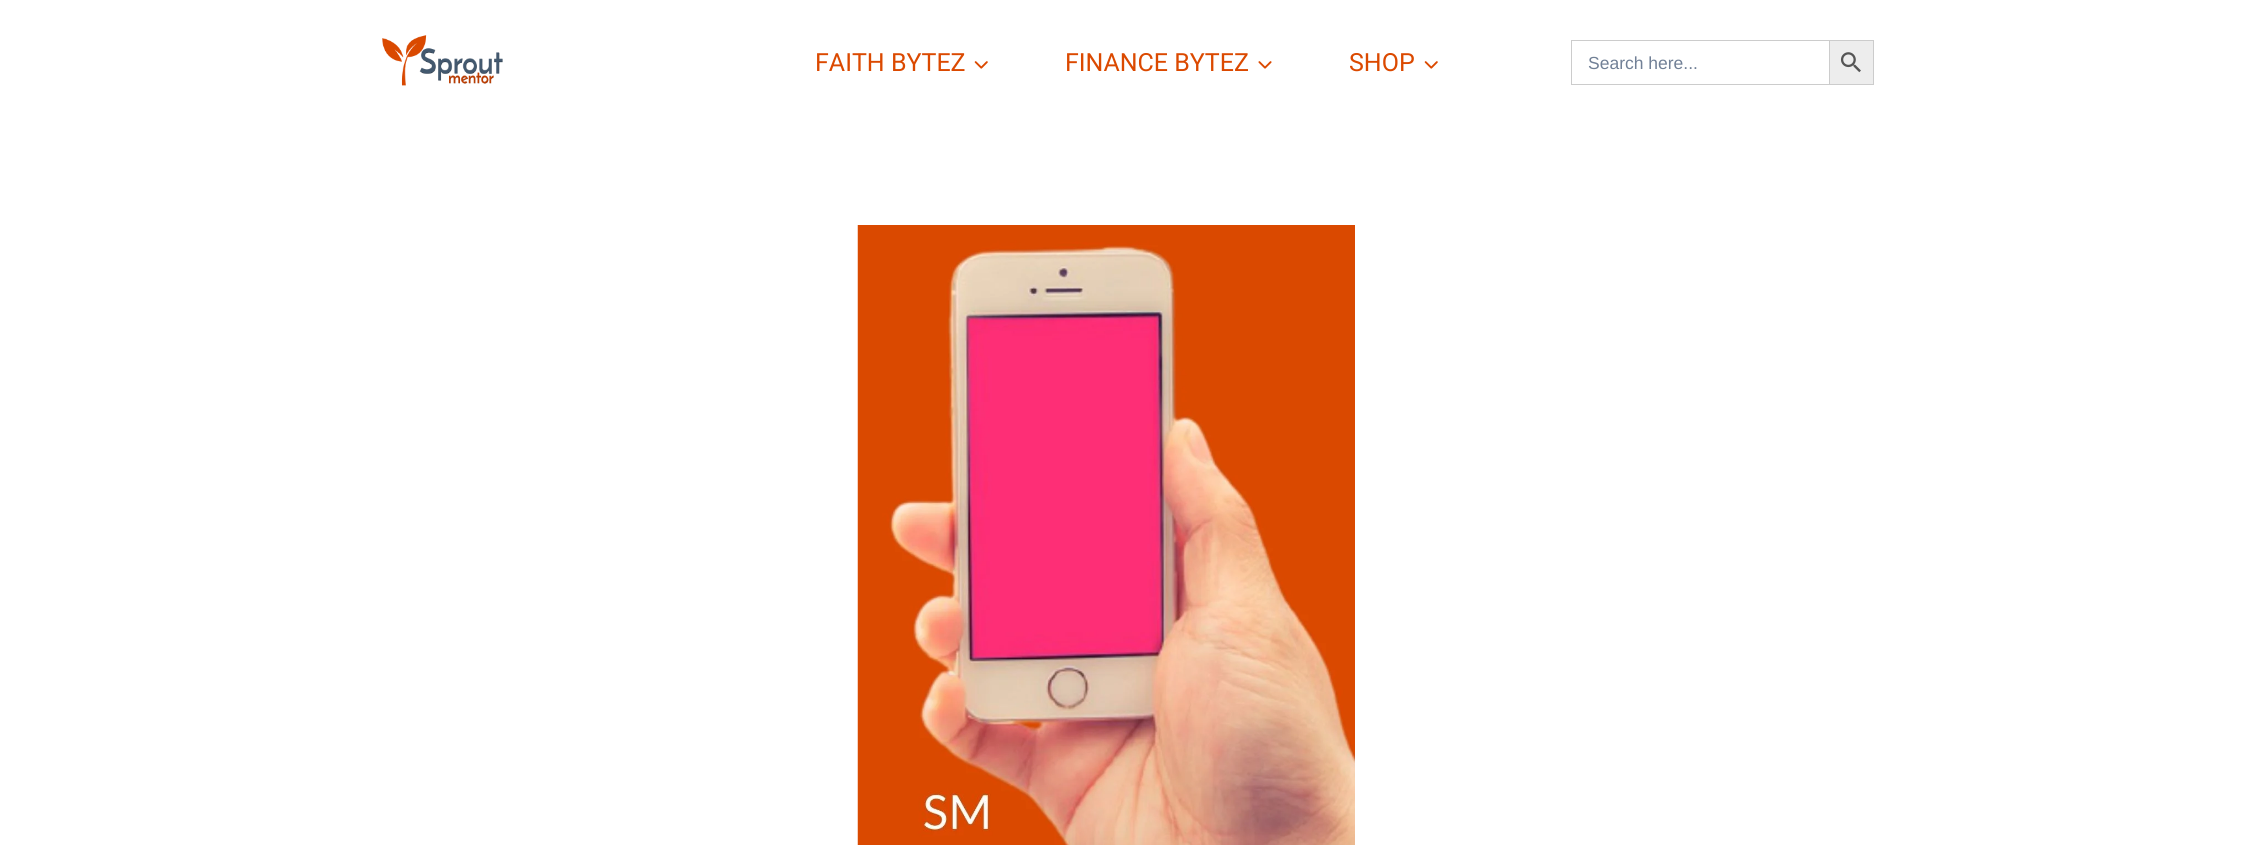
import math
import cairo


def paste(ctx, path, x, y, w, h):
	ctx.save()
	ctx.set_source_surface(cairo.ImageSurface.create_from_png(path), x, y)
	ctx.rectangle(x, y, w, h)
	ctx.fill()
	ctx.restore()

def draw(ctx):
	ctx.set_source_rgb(1, 1, 1)
	ctx.paint()
	paste(ctx, 'media/1.png', 382, 35, 121, 51)
	ctx.select_font_face('Roboto')
	ctx.set_font_size(25)
	ctx.set_source_rgb(0.859, 0.286, 0)
	ctx.move_to(815, 71)
	ctx.show_text('FAITH BYTEZ')
	paste(ctx, 'media/2.png', 974, 61, 14, 8)
	ctx.move_to(1065, 71)
	ctx.show_text('FINANCE BYTEZ')
	paste(ctx, 'media/3.png', 1258, 61, 14, 8)
	ctx.move_to(1349, 71)
	ctx.show_text('SHOP')
	paste(ctx, 'media/2.png', 1424, 61, 14, 8)
	ctx.set_source_rgb(0.8, 0.8, 0.8)
	ctx.rectangle(1571, 40, 258, 1)
	ctx.rectangle(1571, 84, 258, 1)
	ctx.rectangle(1571, 40, 1, 45)
	ctx.fill()
	ctx.select_font_face('Liberation Sans')
	ctx.set_font_size(17.5)
	ctx.set_source_rgb(0.443, 0.502, 0.588)
	ctx.move_to(1588, 69)
	ctx.show_text('Search here...')
	ctx.set_source_rgb(0.929, 0.929, 0.929)
	ctx.rectangle(1829.5, 40.5, 44, 44)
	ctx.fill_preserve()
	ctx.set_source_rgb(0.8, 0.8, 0.8)
	ctx.set_line_width(1)
	ctx.stroke()
	paste(ctx, 'media/4.png', 1840, 52, 21, 21)
	paste(ctx, 'media/5.png', 857, 225, 498, 620)


surface = cairo.ImageSurface(cairo.FORMAT_RGB24, 2254, 845)
ctx = cairo.Context(surface)
options = cairo.FontOptions()
options.set_hint_metrics(cairo.HINT_METRICS_OFF)
options.set_hint_style(cairo.HINT_STYLE_NONE)
ctx.set_font_options(options)
ctx.set_miter_limit(4)
draw(ctx)
surface.write_to_png('image.png')
